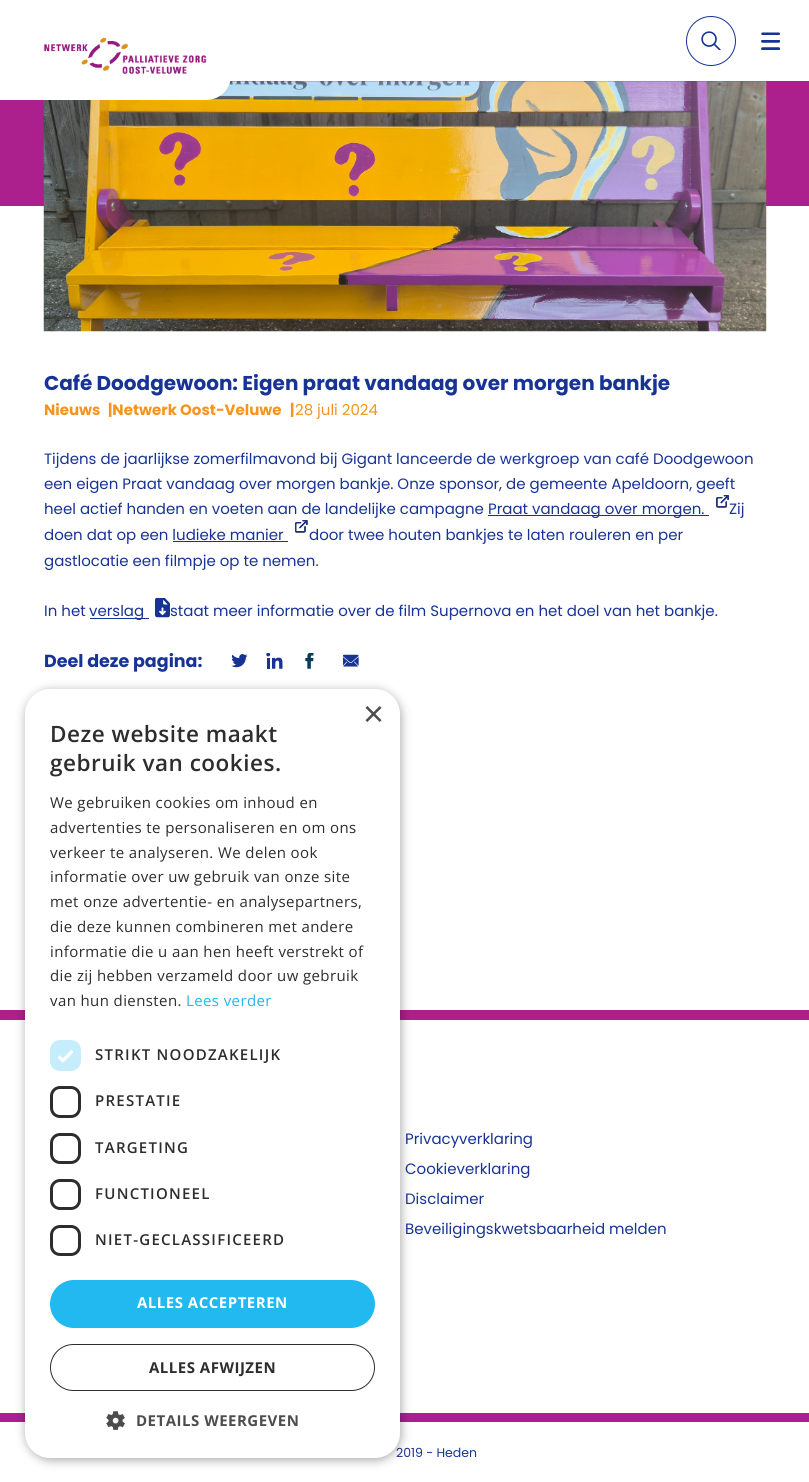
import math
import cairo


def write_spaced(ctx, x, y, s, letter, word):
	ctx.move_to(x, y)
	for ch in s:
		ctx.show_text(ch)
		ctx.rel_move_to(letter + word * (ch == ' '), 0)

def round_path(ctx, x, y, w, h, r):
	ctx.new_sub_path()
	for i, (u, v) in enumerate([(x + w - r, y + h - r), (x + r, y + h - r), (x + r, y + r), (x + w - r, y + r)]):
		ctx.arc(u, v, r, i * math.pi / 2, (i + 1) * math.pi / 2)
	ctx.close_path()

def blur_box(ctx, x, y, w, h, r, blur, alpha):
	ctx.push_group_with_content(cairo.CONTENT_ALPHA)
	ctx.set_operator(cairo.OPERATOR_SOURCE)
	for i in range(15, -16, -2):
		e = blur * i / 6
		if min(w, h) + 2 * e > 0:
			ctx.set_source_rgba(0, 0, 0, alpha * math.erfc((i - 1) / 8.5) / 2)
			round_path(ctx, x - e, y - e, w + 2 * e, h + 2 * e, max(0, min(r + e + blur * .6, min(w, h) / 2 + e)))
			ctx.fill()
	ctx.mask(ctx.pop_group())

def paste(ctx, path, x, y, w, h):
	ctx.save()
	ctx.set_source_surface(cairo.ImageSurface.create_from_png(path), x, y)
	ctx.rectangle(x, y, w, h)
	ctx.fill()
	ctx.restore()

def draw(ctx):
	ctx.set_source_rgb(1, 1, 1)
	ctx.paint()
	ctx.set_source_rgb(0.675, 0.125, 0.557)
	ctx.rectangle(0, 81, 809, 125)
	ctx.fill()
	paste(ctx, 'media/4.png', 43, 81, 724, 251)
	ctx.set_source_rgb(1, 1, 1)
	ctx.new_path()
	ctx.move_to(0, 0)
	ctx.line_to(231, 0)
	ctx.line_to(231, 75)
	ctx.curve_to(231, 89, 220, 100, 206, 100)
	ctx.line_to(0, 100)
	ctx.close_path()
	ctx.fill()
	paste(ctx, 'media/1.png', 43, 37, 164, 37)
	ctx.arc(711, 41, 24.5, 0, 2 * math.pi)
	ctx.set_source_rgb(0.09, 0.2, 0.584)
	ctx.set_line_width(1)
	ctx.stroke()
	paste(ctx, 'media/2.png', 701, 31, 20, 19)
	paste(ctx, 'media/3.png', 761, 32, 19, 18)
	ctx.select_font_face('Poppins', cairo.FONT_SLANT_NORMAL, cairo.FONT_WEIGHT_BOLD)
	ctx.set_font_size(20)
	ctx.move_to(44, 390)
	ctx.show_text('Café Doodgewoon: Eigen praat vandaag over morgen bankje')
	ctx.set_font_size(15)
	ctx.set_source_rgb(0.969, 0.58, 0.118)
	for x, y, s in [
		(44, 415, 'Nieuws'),
		(108, 415, '|Netwerk Oost-Veluwe'),
		(290, 415, '|'),
	]:
		ctx.move_to(x, y)
		ctx.show_text(s)
	ctx.select_font_face('Poppins')
	ctx.move_to(295, 415)
	ctx.show_text('28 juli 2024')
	ctx.set_source_rgb(0.09, 0.2, 0.584)
	for x, y, s in [
		(44, 464, 'Tijdens de jaarlijkse zomerfilmavond bij Gigant lanceerde de werkgroep van café Doodgewoon'),
		(44, 489, 'een eigen Praat vandaag over morgen bankje. Onze sponsor, de gemeente Apeldoorn, geeft'),
		(44, 514, 'heel actief handen en voeten aan de landelijke campagne'),
	]:
		ctx.move_to(x, y)
		ctx.show_text(s)
	ctx.rectangle(488, 515, 221, 1)
	ctx.fill()
	ctx.move_to(488, 514)
	ctx.show_text('Praat vandaag over morgen.')
	paste(ctx, 'media/5.png', 716, 495, 13, 13)
	ctx.move_to(729, 514)
	ctx.show_text('Zij')
	paste(ctx, 'media/6.png', 295, 520, 13, 13)
	ctx.rectangle(173, 541, 115, 1)
	ctx.fill()
	for x, y, s in [
		(44, 540, 'doen dat op een ludieke manier'),
		(309, 540, 'door twee houten bankjes te laten rouleren en per'),
		(44, 566, 'gastlocatie een filmpje op te nemen.'),
		(44, 616, 'In het'),
	]:
		ctx.move_to(x, y)
		ctx.show_text(s)
	ctx.rectangle(90, 618, 59, 1)
	ctx.fill()
	ctx.move_to(89, 616)
	ctx.show_text('verslag')
	paste(ctx, 'media/7.png', 155, 598, 15, 20)
	ctx.move_to(170, 616)
	ctx.show_text('staat meer informatie over de film Supernova en het doel van het bankje.')
	ctx.select_font_face('Poppins', cairo.FONT_SLANT_NORMAL, cairo.FONT_WEIGHT_BOLD)
	ctx.set_font_size(17.5)
	ctx.move_to(44, 667)
	ctx.show_text('Deel deze pagina:')
	paste(ctx, 'media/8.png', 231, 654, 17, 14)
	paste(ctx, 'media/9.png', 266, 653, 17, 16)
	paste(ctx, 'media/10.png', 305, 653, 9, 16)
	paste(ctx, 'media/11.png', 343, 654, 16, 13)
	ctx.set_source_rgb(0.675, 0.125, 0.557)
	ctx.rectangle(0, 1010, 809, 10)
	ctx.fill()
	ctx.select_font_face('Poppins')
	ctx.set_font_size(15)
	ctx.set_source_rgb(0.09, 0.2, 0.584)
	for x, y, s in [
		(405, 1144, 'Privacyverklaring'),
		(405, 1174, 'Cookieverklaring'),
		(405, 1204, 'Disclaimer'),
		(405, 1234, 'Beveiligingskwetsbaarheid melden'),
	]:
		ctx.move_to(x, y)
		ctx.show_text(s)
	ctx.set_source_rgb(0.675, 0.125, 0.557)
	ctx.rectangle(0, 1413, 809, 9)
	ctx.fill()
	ctx.set_font_size(12.5)
	ctx.set_source_rgb(0.09, 0.2, 0.584)
	ctx.move_to(396, 1457)
	ctx.show_text('2019 - Heden')
	ctx.set_source_rgb(0, 0, 0)
	blur_box(ctx, 26, 691, 375, 769, 25, 5, 0.35)
	ctx.set_source_rgb(1, 1, 1)
	round_path(ctx, 25, 689, 375, 769, 25)
	ctx.fill()
	ctx.select_font_face('Liberation Sans')
	ctx.set_font_size(36)
	ctx.set_source_rgb(0.302, 0.302, 0.302)
	ctx.move_to(363, 726)
	ctx.show_text('×')
	ctx.select_font_face('Open Sans SemiBold')
	ctx.set_font_size(22.5)
	ctx.set_source_rgb(0.176, 0.176, 0.176)
	write_spaced(ctx, 50, 742, 'Deze website maakt', 0.5, 0)
	write_spaced(ctx, 50, 771, 'gebruik van cookies.', 0.5, 0)
	ctx.select_font_face('Open Sans')
	ctx.set_font_size(15)
	for x, y, s in [
		(50, 808, 'We gebruiken cookies om inhoud en'),
		(50, 833, 'advertenties te personaliseren en om ons'),
		(50, 858, 'verkeer te analyseren. We delen ook'),
		(50, 882, 'informatie over uw gebruik van onze site'),
		(50, 907, 'met onze advertentie- en analysepartners,'),
		(50, 932, 'die deze kunnen combineren met andere'),
		(50, 957, 'informatie die u aan hen heeft verstrekt of'),
		(50, 981, 'die zij hebben verzameld door uw gebruik'),
		(50, 1006, 'van hun diensten.'),
	]:
		write_spaced(ctx, x, y, s, 0.4, 0)
	ctx.set_source_rgb(0.133, 0.722, 0.941)
	write_spaced(ctx, 186, 1006, 'Lees verder', 0.4, 0)
	ctx.set_source_rgb(0.776, 0.929, 0.984)
	round_path(ctx, 50, 1040, 31, 31, 10)
	ctx.fill()
	ctx.new_path()
	ctx.move_to(58.5, 1056.5)
	ctx.line_to(63, 1060.5)
	ctx.line_to(72.5, 1051)
	ctx.set_source_rgb(1, 1, 1)
	ctx.set_line_width(3.3)
	ctx.stroke()
	ctx.select_font_face('Open Sans SemiBold')
	ctx.set_source_rgb(0.176, 0.176, 0.176)
	write_spaced(ctx, 95, 1060, 'STRIKT NOODZAKELIJK', 1.25, 0)
	round_path(ctx, 51.5, 1087.5, 28, 29, 8.5)
	ctx.set_line_width(3)
	ctx.stroke()
	write_spaced(ctx, 95, 1106, 'PRESTATIE', 1.25, 0)
	round_path(ctx, 51.5, 1134.5, 28, 28, 8.5)
	ctx.stroke()
	write_spaced(ctx, 95, 1153, 'TARGETING', 1.25, 0)
	round_path(ctx, 51.5, 1180.5, 28, 28, 8.5)
	ctx.stroke()
	write_spaced(ctx, 95, 1199, 'FUNCTIONEEL', 1.25, 0)
	round_path(ctx, 51.5, 1226.5, 28, 28, 8.5)
	ctx.stroke()
	write_spaced(ctx, 95, 1245, 'NIET-GECLASSIFICEERD', 1.25, 0)
	ctx.set_source_rgb(0.133, 0.722, 0.941)
	round_path(ctx, 50, 1280, 325, 48, 24)
	ctx.fill()
	ctx.select_font_face('Open Sans', cairo.FONT_SLANT_NORMAL, cairo.FONT_WEIGHT_BOLD)
	ctx.set_source_rgb(1, 1, 1)
	write_spaced(ctx, 137, 1308, 'ALLES ACCEPTEREN', 0.5, 0)
	round_path(ctx, 50.5, 1344.5, 324, 46, 23)
	ctx.set_source_rgb(0.176, 0.176, 0.176)
	ctx.set_line_width(1)
	ctx.stroke()
	write_spaced(ctx, 149, 1373, 'ALLES AFWIJZEN', 0.5, 0)
	paste(ctx, 'media/12.png', 106, 1411, 19, 19)
	ctx.set_source_rgb(0.302, 0.302, 0.302)
	write_spaced(ctx, 136, 1426, 'DETAILS WEERGEVEN', 0.5, 0)


surface = cairo.ImageSurface(cairo.FORMAT_RGB24, 809, 1482)
ctx = cairo.Context(surface)
options = cairo.FontOptions()
options.set_hint_metrics(cairo.HINT_METRICS_OFF)
options.set_hint_style(cairo.HINT_STYLE_NONE)
ctx.set_font_options(options)
ctx.set_miter_limit(4)
draw(ctx)
surface.write_to_png('image.png')
